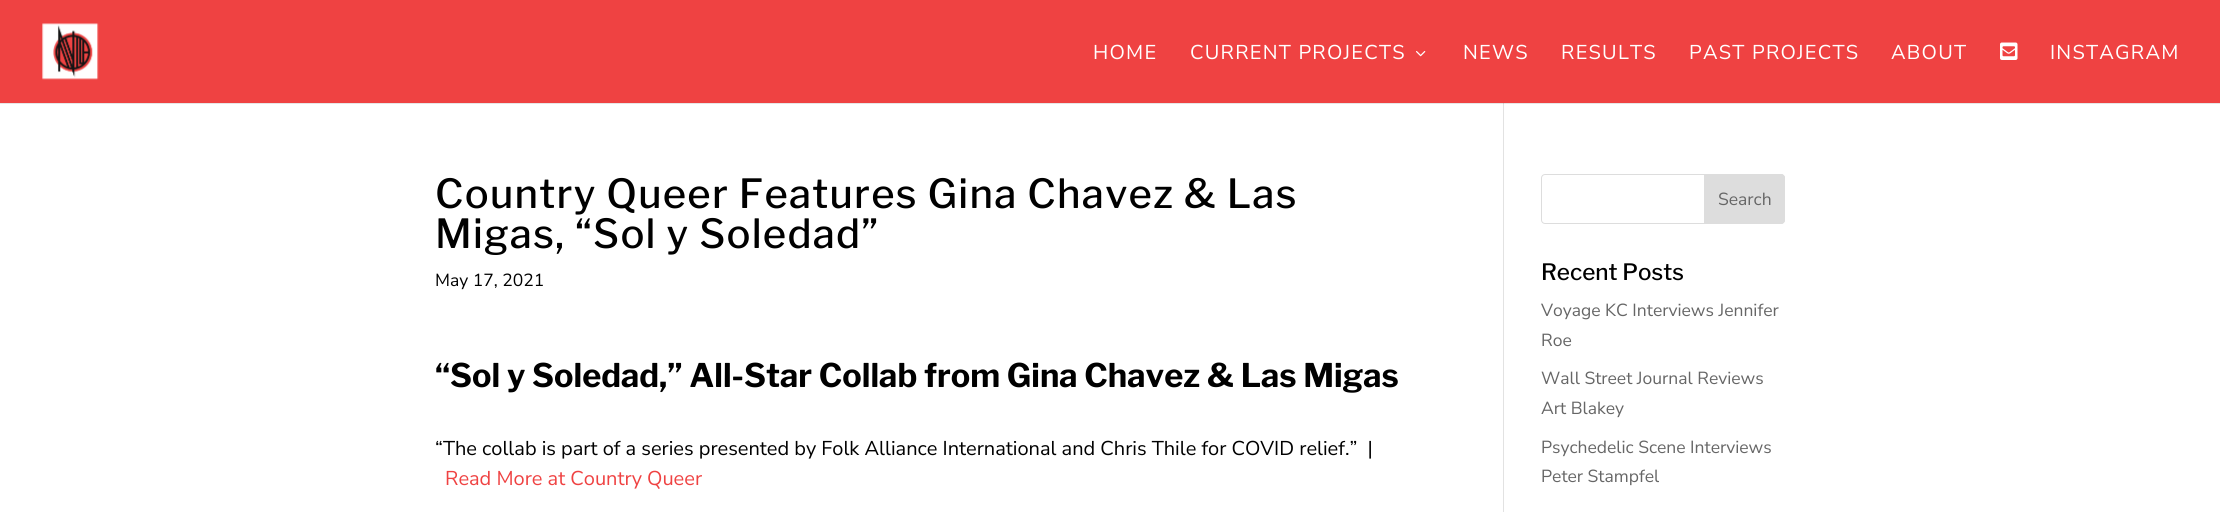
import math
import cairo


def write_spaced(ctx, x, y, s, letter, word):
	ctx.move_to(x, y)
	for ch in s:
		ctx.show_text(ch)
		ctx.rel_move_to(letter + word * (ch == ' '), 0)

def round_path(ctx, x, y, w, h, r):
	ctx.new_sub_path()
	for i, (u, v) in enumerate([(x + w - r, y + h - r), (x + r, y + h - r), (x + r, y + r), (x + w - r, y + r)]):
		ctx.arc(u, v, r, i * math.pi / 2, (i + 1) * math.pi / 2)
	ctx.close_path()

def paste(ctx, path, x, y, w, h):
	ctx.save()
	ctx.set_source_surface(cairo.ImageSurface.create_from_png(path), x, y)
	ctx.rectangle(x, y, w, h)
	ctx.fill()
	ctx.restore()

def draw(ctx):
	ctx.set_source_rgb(1, 1, 1)
	ctx.paint()
	ctx.set_source_rgb(0.902, 0.902, 0.902)
	ctx.rectangle(0, 103, 2220, 1)
	ctx.fill()
	ctx.set_source_rgb(0.886, 0.886, 0.886)
	ctx.rectangle(1503, 101, 1, 411)
	ctx.fill()
	ctx.set_source_rgb(0.796, 0.796, 0.796)
	ctx.rectangle(1503, 102, 1, 2)
	ctx.fill()
	ctx.set_source_rgb(0.937, 0.259, 0.259)
	ctx.rectangle(0, 0, 2220, 103)
	ctx.fill()
	paste(ctx, 'media/1.png', 42, 23, 57, 57)
	ctx.select_font_face('Nunito Sans')
	ctx.set_font_size(20)
	ctx.set_source_rgb(1, 1, 1)
	write_spaced(ctx, 1093, 59, 'HOME', 1.25, 0)
	write_spaced(ctx, 1190, 59, 'CURRENT PROJECTS', 1.25, 0)
	paste(ctx, 'media/2.png', 1416, 51, 10, 6)
	for x, y, s in [
		(1463, 59, 'NEWS'),
		(1561, 59, 'RESULTS'),
		(1689, 59, 'PAST PROJECTS'),
		(1891, 59, 'ABOUT'),
	]:
		write_spaced(ctx, x, y, s, 1.25, 0)
	paste(ctx, 'media/3.png', 2000, 42, 18, 18)
	write_spaced(ctx, 2050, 59, 'INSTAGRAM', 1.25, 0)
	ctx.select_font_face('Libre Franklin Medium')
	ctx.set_font_size(40)
	ctx.set_source_rgb(0, 0, 0)
	write_spaced(ctx, 435, 208, 'Country Queer Features Gina Chavez & Las', 1.25, 0)
	write_spaced(ctx, 435, 248, 'Migas, “Sol y Soledad”', 1.25, 0)
	ctx.select_font_face('Nunito Sans')
	ctx.set_font_size(17.5)
	ctx.move_to(435, 286)
	ctx.show_text('May 17, 2021')
	ctx.select_font_face('Libre Franklin', cairo.FONT_SLANT_NORMAL, cairo.FONT_WEIGHT_BOLD)
	ctx.set_font_size(32.5)
	ctx.move_to(435, 387)
	ctx.show_text('“Sol y Soledad,” All-Star Collab from Gina Chavez & Las Migas')
	ctx.select_font_face('Nunito Sans')
	ctx.set_font_size(20)
	ctx.move_to(435, 455)
	ctx.show_text('“The collab is part of a series presented by Folk Alliance International and Chris Thile for COVID relief.”  |')
	ctx.set_source_rgb(0.937, 0.259, 0.259)
	ctx.move_to(445, 485)
	ctx.show_text('Read More at Country Queer')
	round_path(ctx, 1541.5, 174.5, 243, 49, 3.5)
	ctx.set_source_rgb(0.867, 0.867, 0.867)
	ctx.set_line_width(1)
	ctx.stroke()
	ctx.new_path()
	ctx.move_to(1704.5, 174.5)
	ctx.line_to(1781, 174.5)
	ctx.curve_to(1783, 174.5, 1784.5, 176, 1784.5, 178)
	ctx.line_to(1784.5, 220)
	ctx.curve_to(1784.5, 222, 1783, 223.5, 1781, 223.5)
	ctx.line_to(1704.5, 223.5)
	ctx.close_path()
	ctx.fill_preserve()
	ctx.stroke()
	ctx.set_font_size(17.5)
	ctx.set_source_rgb(0.4, 0.4, 0.4)
	ctx.move_to(1718, 205)
	ctx.show_text('Search')
	ctx.select_font_face('Libre Franklin Medium')
	ctx.set_font_size(22.5)
	ctx.set_source_rgb(0, 0, 0)
	ctx.move_to(1541, 280)
	ctx.show_text('Recent Posts')
	ctx.select_font_face('Nunito Sans')
	ctx.set_font_size(17.5)
	ctx.set_source_rgb(0.4, 0.4, 0.4)
	for x, y, s in [
		(1541, 316, 'Voyage KC Interviews Jennifer'),
		(1541, 346, 'Roe'),
		(1541, 384, 'Wall Street Journal Reviews'),
		(1541, 414, 'Art Blakey'),
		(1541, 453, 'Psychedelic Scene Interviews'),
		(1541, 482, 'Peter Stampfel'),
	]:
		ctx.move_to(x, y)
		ctx.show_text(s)


surface = cairo.ImageSurface(cairo.FORMAT_RGB24, 2220, 512)
ctx = cairo.Context(surface)
options = cairo.FontOptions()
options.set_hint_metrics(cairo.HINT_METRICS_OFF)
options.set_hint_style(cairo.HINT_STYLE_NONE)
ctx.set_font_options(options)
ctx.set_miter_limit(4)
draw(ctx)
surface.write_to_png('image.png')
